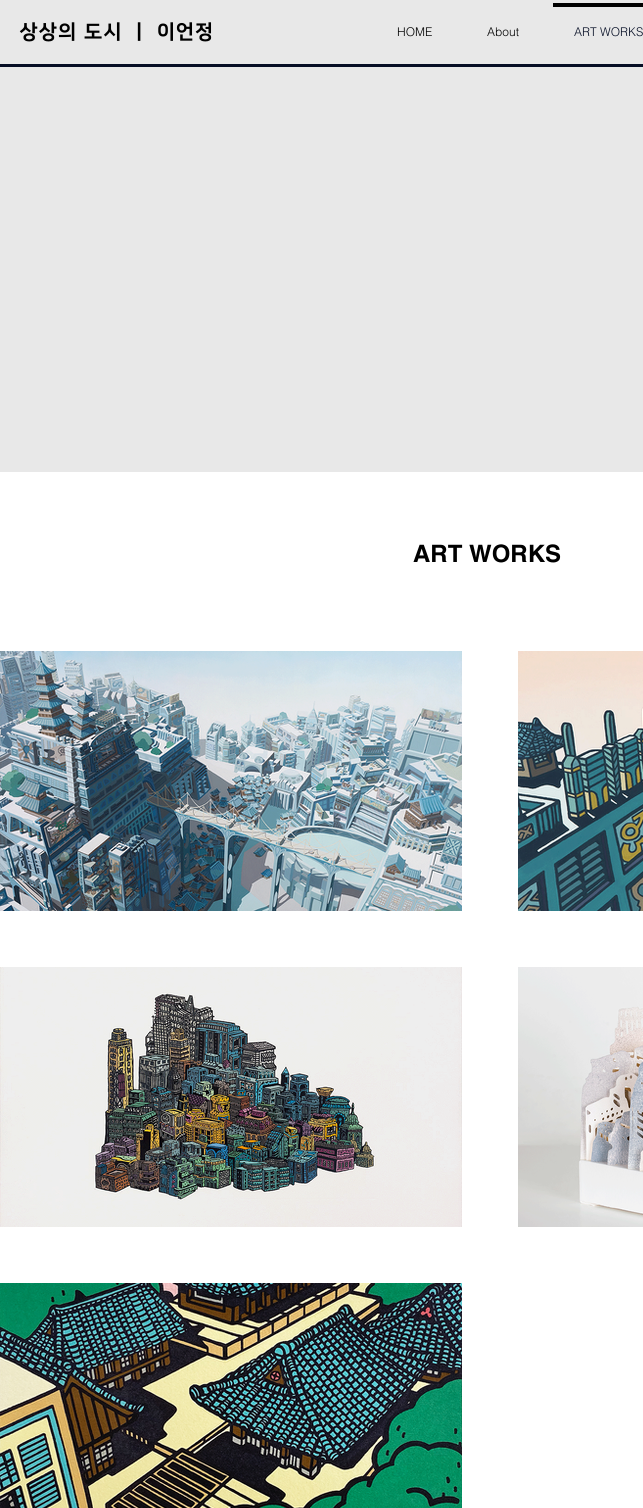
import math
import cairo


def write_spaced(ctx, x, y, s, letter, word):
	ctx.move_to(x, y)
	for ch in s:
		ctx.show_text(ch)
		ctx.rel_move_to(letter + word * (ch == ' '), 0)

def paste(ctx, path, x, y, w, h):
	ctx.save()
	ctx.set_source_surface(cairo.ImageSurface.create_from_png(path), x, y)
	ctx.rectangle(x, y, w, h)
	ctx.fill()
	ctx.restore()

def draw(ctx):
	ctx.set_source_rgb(0.91, 0.91, 0.91)
	ctx.paint()
	ctx.select_font_face('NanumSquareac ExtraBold')
	ctx.set_font_size(20)
	ctx.set_source_rgb(0, 0, 0)
	write_spaced(ctx, 20, 38, '상상의 도시 ㅣ 이언정', 2, 0)
	ctx.select_font_face('helvetica Light')
	ctx.set_font_size(12)
	ctx.move_to(397, 36)
	ctx.show_text('HOME')
	ctx.move_to(487, 36)
	ctx.show_text('About')
	ctx.rectangle(553, 3, 90, 4)
	ctx.fill()
	ctx.set_source_rgb(0.024, 0.055, 0.145)
	ctx.move_to(574, 36)
	ctx.show_text('ART WORKS')
	ctx.rectangle(0, 64, 643, 3)
	ctx.fill()
	ctx.set_source_rgb(1, 1, 1)
	ctx.rectangle(0, 472, 643, 1036)
	ctx.fill()
	ctx.select_font_face('helvetica', cairo.FONT_SLANT_NORMAL, cairo.FONT_WEIGHT_BOLD)
	ctx.set_font_size(24)
	ctx.set_source_rgb(0, 0, 0)
	ctx.move_to(413, 562)
	ctx.show_text('ART WORKS')
	paste(ctx, 'media/1.png', 0, 651, 462, 260)
	paste(ctx, 'media/2.png', 518, 651, 125, 260)
	paste(ctx, 'media/3.png', 0, 967, 462, 260)
	paste(ctx, 'media/4.png', 518, 967, 125, 260)
	paste(ctx, 'media/5.png', 0, 1283, 462, 225)


surface = cairo.ImageSurface(cairo.FORMAT_RGB24, 643, 1508)
ctx = cairo.Context(surface)
options = cairo.FontOptions()
options.set_hint_metrics(cairo.HINT_METRICS_OFF)
options.set_hint_style(cairo.HINT_STYLE_NONE)
ctx.set_font_options(options)
ctx.set_miter_limit(4)
draw(ctx)
surface.write_to_png('image.png')
